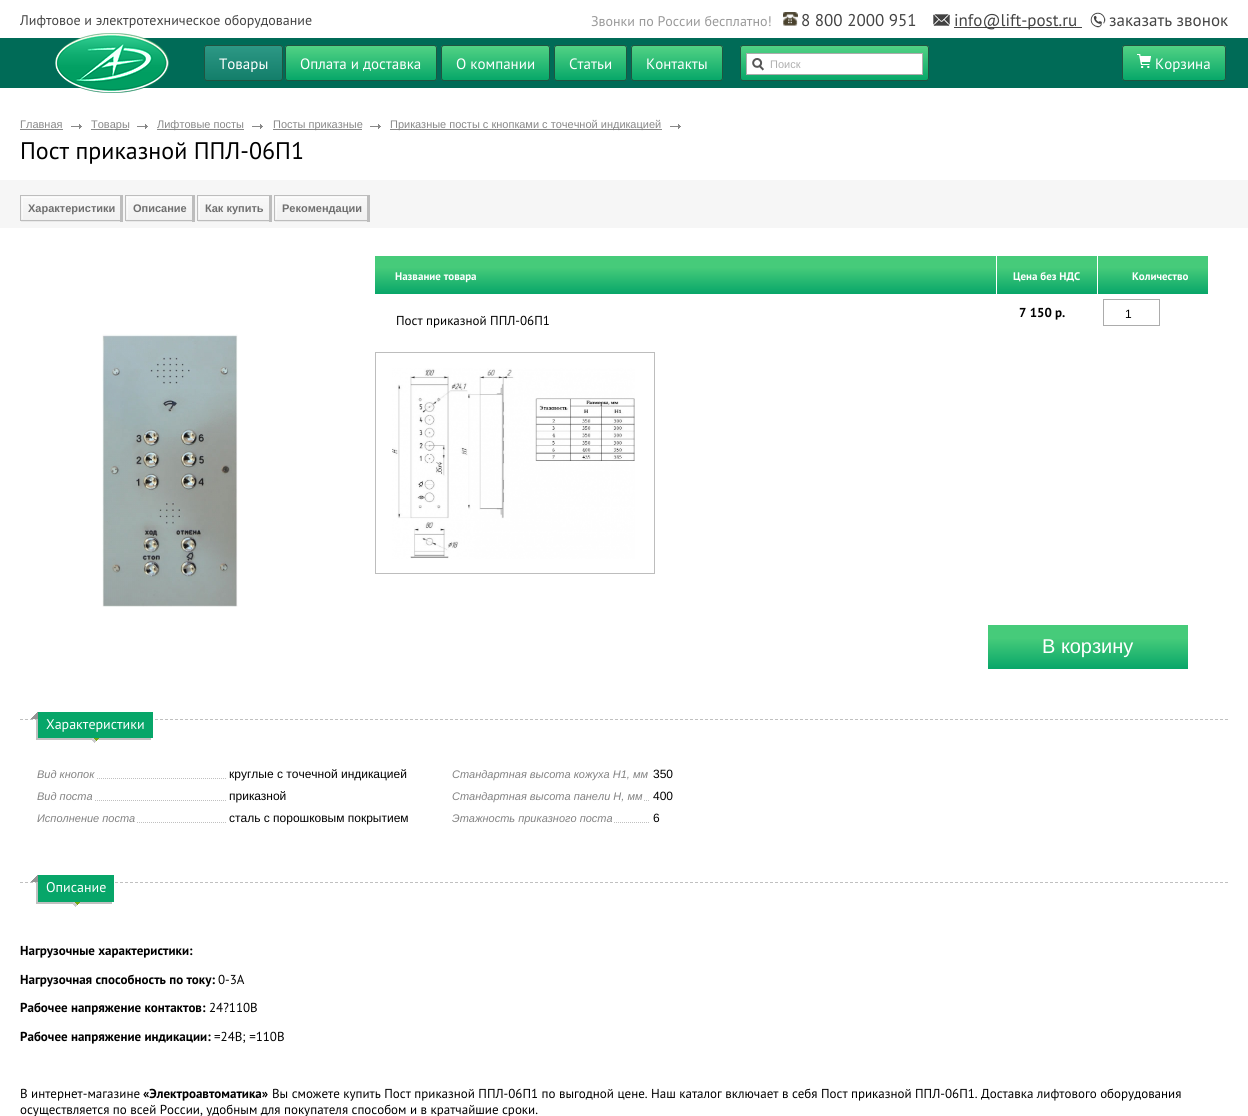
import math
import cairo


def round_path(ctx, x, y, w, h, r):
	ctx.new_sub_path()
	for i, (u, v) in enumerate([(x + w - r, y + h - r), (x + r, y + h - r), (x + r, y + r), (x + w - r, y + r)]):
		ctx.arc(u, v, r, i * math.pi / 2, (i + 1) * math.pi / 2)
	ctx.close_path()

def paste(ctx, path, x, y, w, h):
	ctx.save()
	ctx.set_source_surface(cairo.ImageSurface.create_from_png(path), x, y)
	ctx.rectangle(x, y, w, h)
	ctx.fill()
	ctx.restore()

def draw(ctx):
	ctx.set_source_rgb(1, 1, 1)
	ctx.paint()
	ctx.select_font_face('PT Sans')
	ctx.set_font_size(14)
	ctx.set_source_rgb(0.267, 0.267, 0.267)
	ctx.move_to(20, 25)
	ctx.show_text('Лифтовое и электротехническое оборудование')
	ctx.set_source_rgb(0.6, 0.6, 0.6)
	ctx.move_to(591, 26)
	ctx.show_text('Звонки по России бесплатно!')
	paste(ctx, 'media/1.png', 783, 12, 15, 14)
	ctx.set_font_size(17)
	ctx.set_source_rgb(0.267, 0.267, 0.267)
	ctx.move_to(801, 26)
	ctx.show_text('8 800 2000 951')
	paste(ctx, 'media/2.png', 933, 14, 17, 12)
	ctx.rectangle(954, 27, 128, 1)
	ctx.fill()
	ctx.move_to(954, 26)
	ctx.show_text('info@lift-post.ru')
	paste(ctx, 'media/3.png', 1090, 12, 16, 16)
	ctx.move_to(1109, 26)
	ctx.show_text('заказать звонок')
	ctx.set_source_rgb(0, 0.42, 0.341)
	ctx.rectangle(0, 38, 1248, 50)
	ctx.fill()
	paste(ctx, 'media/4.png', 55, 33, 114, 60)
	ctx.save()
	round_path(ctx, 204, 45, 79, 36, 3)
	ctx.clip()
	gradient = cairo.LinearGradient(244, 46, 244, 80)
	gradient.add_color_stop_rgba(0, 0.176, 0.596, 0.522, 1)
	gradient.add_color_stop_rgba(1, 0.075, 0.494, 0.416, 1)
	ctx.set_source(gradient)
	ctx.rectangle(204, 46, 79, 34)
	ctx.fill()
	ctx.restore()
	round_path(ctx, 204.5, 45.5, 78, 35, 2.5)
	ctx.set_source_rgb(0.129, 0.329, 0.255)
	ctx.set_line_width(1)
	ctx.stroke()
	ctx.set_font_size(15)
	ctx.set_source_rgb(1, 1, 1)
	ctx.move_to(219, 69)
	ctx.show_text('Товары')
	ctx.save()
	round_path(ctx, 285, 45, 152, 36, 3)
	ctx.clip()
	gradient = cairo.LinearGradient(361, 46, 361, 80)
	gradient.add_color_stop_rgba(0, 0.322, 0.824, 0.518, 1)
	gradient.add_color_stop_rgba(1, 0.027, 0.655, 0.412, 1)
	ctx.set_source(gradient)
	ctx.rectangle(285, 46, 152, 34)
	ctx.fill()
	ctx.restore()
	round_path(ctx, 285.5, 45.5, 151, 35, 2.5)
	ctx.set_source_rgb(0.129, 0.329, 0.255)
	ctx.stroke()
	ctx.set_source_rgb(1, 1, 1)
	ctx.move_to(300, 69)
	ctx.show_text('Оплата и доставка')
	ctx.save()
	round_path(ctx, 441, 45, 109, 36, 3)
	ctx.clip()
	gradient = cairo.LinearGradient(496, 46, 496, 80)
	gradient.add_color_stop_rgba(0, 0.322, 0.824, 0.518, 1)
	gradient.add_color_stop_rgba(1, 0.027, 0.655, 0.412, 1)
	ctx.set_source(gradient)
	ctx.rectangle(441, 46, 109, 34)
	ctx.fill()
	ctx.restore()
	round_path(ctx, 441.5, 45.5, 108, 35, 2.5)
	ctx.set_source_rgb(0.129, 0.329, 0.255)
	ctx.stroke()
	ctx.set_source_rgb(1, 1, 1)
	ctx.move_to(456, 69)
	ctx.show_text('О компании')
	ctx.save()
	round_path(ctx, 554, 45, 73, 36, 3)
	ctx.clip()
	gradient = cairo.LinearGradient(591, 46, 591, 80)
	gradient.add_color_stop_rgba(0, 0.322, 0.824, 0.518, 1)
	gradient.add_color_stop_rgba(1, 0.027, 0.655, 0.412, 1)
	ctx.set_source(gradient)
	ctx.rectangle(554, 46, 73, 34)
	ctx.fill()
	ctx.restore()
	round_path(ctx, 554.5, 45.5, 72, 35, 2.5)
	ctx.set_source_rgb(0.129, 0.329, 0.255)
	ctx.stroke()
	ctx.set_source_rgb(1, 1, 1)
	ctx.move_to(569, 69)
	ctx.show_text('Статьи')
	ctx.save()
	round_path(ctx, 631, 45, 92, 36, 3)
	ctx.clip()
	gradient = cairo.LinearGradient(677, 46, 677, 80)
	gradient.add_color_stop_rgba(0, 0.322, 0.824, 0.518, 1)
	gradient.add_color_stop_rgba(1, 0.027, 0.655, 0.412, 1)
	ctx.set_source(gradient)
	ctx.rectangle(631, 46, 92, 34)
	ctx.fill()
	ctx.restore()
	round_path(ctx, 631.5, 45.5, 91, 35, 2.5)
	ctx.set_source_rgb(0.129, 0.329, 0.255)
	ctx.stroke()
	ctx.set_source_rgb(1, 1, 1)
	ctx.move_to(646, 69)
	ctx.show_text('Контакты')
	ctx.save()
	round_path(ctx, 740, 45, 189, 36, 3)
	ctx.clip()
	gradient = cairo.LinearGradient(835, 46, 835, 80)
	gradient.add_color_stop_rgba(0, 0.322, 0.824, 0.518, 1)
	gradient.add_color_stop_rgba(1, 0.027, 0.655, 0.412, 1)
	ctx.set_source(gradient)
	ctx.rectangle(740, 46, 189, 34)
	ctx.fill()
	ctx.restore()
	round_path(ctx, 740.5, 45.5, 188, 35, 2.5)
	ctx.set_source_rgb(0.129, 0.329, 0.255)
	ctx.stroke()
	ctx.set_source_rgb(1, 1, 1)
	ctx.rectangle(746.5, 53.5, 176, 21)
	ctx.fill_preserve()
	ctx.set_source_rgb(0.675, 0.675, 0.675)
	ctx.stroke()
	paste(ctx, 'media/5.png', 752, 58, 12, 13)
	ctx.select_font_face('Liberation Sans')
	ctx.set_font_size(11)
	ctx.set_source_rgb(0.686, 0.686, 0.686)
	ctx.move_to(770, 68)
	ctx.show_text('Поиск')
	ctx.save()
	round_path(ctx, 1122, 45, 104, 36, 3)
	ctx.clip()
	gradient = cairo.LinearGradient(1174, 46, 1174, 80)
	gradient.add_color_stop_rgba(0, 0.322, 0.824, 0.518, 1)
	gradient.add_color_stop_rgba(1, 0.027, 0.655, 0.412, 1)
	ctx.set_source(gradient)
	ctx.rectangle(1122, 46, 104, 34)
	ctx.fill()
	ctx.restore()
	round_path(ctx, 1122.5, 45.5, 103, 35, 2.5)
	ctx.set_source_rgb(0.129, 0.329, 0.255)
	ctx.stroke()
	paste(ctx, 'media/6.png', 1137, 54, 14, 14)
	ctx.select_font_face('PT Sans')
	ctx.set_font_size(15)
	ctx.set_source_rgb(1, 1, 1)
	ctx.move_to(1155, 69)
	ctx.show_text('Корзина')
	ctx.select_font_face('Liberation Sans')
	ctx.set_font_size(11)
	ctx.set_source_rgb(0.533, 0.533, 0.533)
	ctx.move_to(20, 128)
	ctx.show_text('Главная')
	ctx.rectangle(20, 129, 43, 1)
	ctx.fill()
	paste(ctx, 'media/7.png', 71, 124, 11, 5)
	ctx.rectangle(91, 129, 38, 1)
	ctx.fill()
	ctx.move_to(91, 128)
	ctx.show_text('Товары')
	paste(ctx, 'media/7.png', 137, 124, 11, 5)
	ctx.rectangle(157, 129, 87, 1)
	ctx.fill()
	ctx.move_to(157, 128)
	ctx.show_text('Лифтовые посты')
	paste(ctx, 'media/7.png', 252, 124, 11, 5)
	ctx.rectangle(273, 129, 89, 1)
	ctx.fill()
	ctx.move_to(273, 128)
	ctx.show_text('Посты приказные')
	paste(ctx, 'media/7.png', 370, 124, 11, 5)
	ctx.rectangle(390, 129, 272, 1)
	ctx.fill()
	ctx.move_to(390, 128)
	ctx.show_text('Приказные посты с кнопками с точечной индикацией')
	paste(ctx, 'media/7.png', 670, 124, 11, 5)
	ctx.select_font_face('PT Sans')
	ctx.set_font_size(24)
	ctx.set_source_rgb(0, 0, 0)
	ctx.move_to(20, 159)
	ctx.show_text('Пост приказной ППЛ-06П1')
	ctx.set_source_rgb(0.961, 0.961, 0.961)
	ctx.rectangle(0, 180, 1248, 48)
	ctx.fill()
	paste(ctx, 'media/8.png', 20, 195, 3, 27)
	paste(ctx, 'media/9.png', 23, 195, 97, 27)
	ctx.select_font_face('Liberation Sans', cairo.FONT_SLANT_NORMAL, cairo.FONT_WEIGHT_BOLD)
	ctx.set_font_size(11)
	ctx.set_source_rgb(0.435, 0.435, 0.435)
	ctx.move_to(28, 212)
	ctx.show_text('Характеристики')
	ctx.set_source_rgb(0.741, 0.741, 0.741)
	ctx.rectangle(120, 195, 3, 27)
	ctx.fill()
	paste(ctx, 'media/8.png', 125, 195, 3, 27)
	paste(ctx, 'media/10.png', 128, 195, 64, 27)
	ctx.set_source_rgb(0.435, 0.435, 0.435)
	ctx.move_to(133, 212)
	ctx.show_text('Описание')
	ctx.set_source_rgb(0.741, 0.741, 0.741)
	ctx.rectangle(192, 195, 3, 27)
	ctx.fill()
	paste(ctx, 'media/8.png', 197, 195, 3, 27)
	paste(ctx, 'media/11.png', 200, 195, 69, 27)
	ctx.set_source_rgb(0.435, 0.435, 0.435)
	ctx.move_to(205, 212)
	ctx.show_text('Как купить')
	ctx.set_source_rgb(0.741, 0.741, 0.741)
	ctx.rectangle(269, 195, 3, 27)
	ctx.fill()
	paste(ctx, 'media/8.png', 274, 195, 3, 27)
	paste(ctx, 'media/12.png', 277, 195, 90, 27)
	ctx.set_source_rgb(0.435, 0.435, 0.435)
	ctx.move_to(282, 212)
	ctx.show_text('Рекомендации')
	ctx.set_source_rgb(0.741, 0.741, 0.741)
	ctx.rectangle(367, 195, 3, 27)
	ctx.fill()
	paste(ctx, 'media/13.png', 102, 334, 136, 273)
	gradient = cairo.LinearGradient(385, 294, 385, 256)
	gradient.add_color_stop_rgba(0, 0.031, 0.651, 0.412, 1)
	gradient.add_color_stop_rgba(0.7, 0.275, 0.796, 0.478, 1)
	ctx.set_source(gradient)
	ctx.rectangle(375, 256, 20, 38)
	ctx.fill()
	gradient = cairo.LinearGradient(696, 294, 696, 256)
	gradient.add_color_stop_rgba(0, 0.031, 0.651, 0.412, 1)
	gradient.add_color_stop_rgba(0.7, 0.275, 0.796, 0.478, 1)
	ctx.set_source(gradient)
	ctx.rectangle(395, 256, 601, 38)
	ctx.fill()
	ctx.select_font_face('PT Sans', cairo.FONT_SLANT_NORMAL, cairo.FONT_WEIGHT_BOLD)
	ctx.set_source_rgb(1, 1, 1)
	ctx.move_to(395, 280)
	ctx.show_text('Название товара')
	gradient = cairo.LinearGradient(1047, 294, 1047, 256)
	gradient.add_color_stop_rgba(0, 0.031, 0.651, 0.412, 1)
	gradient.add_color_stop_rgba(0.7, 0.275, 0.796, 0.478, 1)
	ctx.set_source(gradient)
	ctx.rectangle(997, 256, 100, 38)
	ctx.fill()
	ctx.set_source_rgb(1, 1, 1)
	ctx.move_to(1013, 280)
	ctx.show_text('Цена без НДС')
	gradient = cairo.LinearGradient(1143, 294, 1143, 256)
	gradient.add_color_stop_rgba(0, 0.031, 0.651, 0.412, 1)
	gradient.add_color_stop_rgba(0.7, 0.275, 0.796, 0.478, 1)
	ctx.set_source(gradient)
	ctx.rectangle(1098, 256, 90, 38)
	ctx.fill()
	ctx.set_source_rgb(1, 1, 1)
	ctx.move_to(1132, 280)
	ctx.show_text('Количество')
	gradient = cairo.LinearGradient(1198, 294, 1198, 256)
	gradient.add_color_stop_rgba(0, 0.031, 0.651, 0.412, 1)
	gradient.add_color_stop_rgba(0.7, 0.275, 0.796, 0.478, 1)
	ctx.set_source(gradient)
	ctx.rectangle(1188, 256, 20, 38)
	ctx.fill()
	ctx.set_font_size(13)
	ctx.set_source_rgb(0, 0, 0)
	ctx.move_to(1019, 317)
	ctx.show_text('7 150 р.')
	ctx.rectangle(1103.5, 299.5, 56, 26)
	ctx.set_source_rgb(0.675, 0.675, 0.675)
	ctx.stroke()
	ctx.select_font_face('Liberation Sans')
	ctx.set_font_size(12)
	ctx.set_source_rgb(0, 0, 0)
	ctx.move_to(1125, 318)
	ctx.show_text('1')
	ctx.select_font_face('PT Sans')
	ctx.set_font_size(13)
	ctx.move_to(396, 325)
	ctx.show_text('Пост приказной ППЛ-06П1')
	ctx.rectangle(375.5, 352.5, 279, 221)
	ctx.set_source_rgb(0.741, 0.741, 0.741)
	ctx.stroke()
	paste(ctx, 'media/14.png', 392, 368, 243, 191)
	gradient = cairo.LinearGradient(999, 669, 999, 625)
	gradient.add_color_stop_rgba(0, 0.031, 0.651, 0.412, 1)
	gradient.add_color_stop_rgba(0.7, 0.275, 0.796, 0.478, 1)
	ctx.set_source(gradient)
	ctx.rectangle(988, 625, 22, 44)
	ctx.fill()
	gradient = cairo.LinearGradient(1088, 669, 1088, 625)
	gradient.add_color_stop_rgba(0, 0.031, 0.651, 0.412, 1)
	gradient.add_color_stop_rgba(0.7, 0.275, 0.796, 0.478, 1)
	ctx.set_source(gradient)
	ctx.rectangle(1010, 625, 156, 44)
	ctx.fill()
	ctx.select_font_face('Liberation Sans')
	ctx.set_font_size(20)
	ctx.set_source_rgb(1, 1, 1)
	ctx.move_to(1042, 653)
	ctx.show_text('В корзину')
	gradient = cairo.LinearGradient(1177, 669, 1177, 625)
	gradient.add_color_stop_rgba(0, 0.031, 0.651, 0.412, 1)
	gradient.add_color_stop_rgba(0.7, 0.275, 0.796, 0.478, 1)
	ctx.set_source(gradient)
	ctx.rectangle(1166, 625, 22, 44)
	ctx.fill()
	ctx.new_path()
	ctx.move_to(20, 719.5)
	ctx.line_to(1228, 719.5)
	ctx.set_source_rgb(0.753, 0.753, 0.753)
	ctx.set_dash([3, 2])
	ctx.stroke()
	ctx.new_path()
	ctx.move_to(36, 714)
	ctx.line_to(36, 740)
	ctx.line_to(151, 740)
	ctx.line_to(151, 738)
	ctx.line_to(38, 738)
	ctx.line_to(38, 714)
	ctx.close_path()
	ctx.fill()
	ctx.set_source_rgb(0.031, 0.651, 0.412)
	ctx.rectangle(38, 712, 115, 26)
	ctx.fill()
	paste(ctx, 'media/15.png', 31, 712, 7, 7)
	ctx.select_font_face('PT Sans')
	ctx.set_font_size(14)
	ctx.set_source_rgb(1, 1, 1)
	ctx.move_to(46, 729)
	ctx.show_text('Характеристики')
	paste(ctx, 'media/16.png', 92, 738, 7, 5)
	ctx.new_path()
	ctx.move_to(37, 778.5)
	ctx.line_to(226, 778.5)
	ctx.set_source_rgb(0.753, 0.753, 0.753)
	ctx.set_dash([1, 1])
	ctx.stroke()
	ctx.set_source_rgb(1, 1, 1)
	ctx.rectangle(37, 778, 59, 1)
	ctx.fill()
	ctx.select_font_face('Liberation Sans', cairo.FONT_SLANT_ITALIC)
	ctx.set_font_size(11)
	ctx.set_source_rgb(0.51, 0.51, 0.51)
	ctx.move_to(37, 778)
	ctx.show_text('Вид кнопок')
	ctx.select_font_face('Liberation Sans')
	ctx.set_font_size(12)
	ctx.set_source_rgb(0, 0, 0)
	ctx.move_to(229, 778)
	ctx.show_text('круглые с точечной индикацией')
	ctx.new_path()
	ctx.move_to(37, 800.5)
	ctx.line_to(226, 800.5)
	ctx.set_source_rgb(0.753, 0.753, 0.753)
	ctx.stroke()
	ctx.set_source_rgb(1, 1, 1)
	ctx.rectangle(37, 800, 57, 1)
	ctx.fill()
	ctx.select_font_face('Liberation Sans', cairo.FONT_SLANT_ITALIC)
	ctx.set_font_size(11)
	ctx.set_source_rgb(0.51, 0.51, 0.51)
	ctx.move_to(37, 800)
	ctx.show_text('Вид поста')
	ctx.select_font_face('Liberation Sans')
	ctx.set_font_size(12)
	ctx.set_source_rgb(0, 0, 0)
	ctx.move_to(229, 800)
	ctx.show_text('приказной')
	ctx.new_path()
	ctx.move_to(37, 822.5)
	ctx.line_to(226, 822.5)
	ctx.set_source_rgb(0.753, 0.753, 0.753)
	ctx.stroke()
	ctx.set_source_rgb(1, 1, 1)
	ctx.rectangle(37, 822, 99, 1)
	ctx.fill()
	ctx.select_font_face('Liberation Sans', cairo.FONT_SLANT_ITALIC)
	ctx.set_font_size(11)
	ctx.set_source_rgb(0.51, 0.51, 0.51)
	ctx.move_to(37, 822)
	ctx.show_text('Исполнение поста')
	ctx.select_font_face('Liberation Sans')
	ctx.set_font_size(12)
	ctx.set_source_rgb(0, 0, 0)
	ctx.move_to(229, 822)
	ctx.show_text('сталь с порошковым покрытием')
	ctx.select_font_face('Liberation Sans', cairo.FONT_SLANT_ITALIC)
	ctx.set_font_size(11)
	ctx.set_source_rgb(0.51, 0.51, 0.51)
	ctx.move_to(452, 778)
	ctx.show_text('Стандартная высота кожуха H1, мм')
	ctx.select_font_face('Liberation Sans')
	ctx.set_font_size(12)
	ctx.set_source_rgb(0, 0, 0)
	ctx.move_to(653, 778)
	ctx.show_text('350')
	ctx.new_path()
	ctx.move_to(452, 800.5)
	ctx.line_to(650, 800.5)
	ctx.set_source_rgb(0.753, 0.753, 0.753)
	ctx.stroke()
	ctx.set_source_rgb(1, 1, 1)
	ctx.rectangle(452, 800, 191, 1)
	ctx.fill()
	ctx.select_font_face('Liberation Sans', cairo.FONT_SLANT_ITALIC)
	ctx.set_font_size(11)
	ctx.set_source_rgb(0.51, 0.51, 0.51)
	ctx.move_to(452, 800)
	ctx.show_text('Стандартная высота панели H, мм')
	ctx.select_font_face('Liberation Sans')
	ctx.set_font_size(12)
	ctx.set_source_rgb(0, 0, 0)
	ctx.move_to(653, 800)
	ctx.show_text('400')
	ctx.new_path()
	ctx.move_to(452, 822.5)
	ctx.line_to(650, 822.5)
	ctx.set_source_rgb(0.753, 0.753, 0.753)
	ctx.stroke()
	ctx.set_source_rgb(1, 1, 1)
	ctx.rectangle(452, 822, 161, 1)
	ctx.fill()
	ctx.select_font_face('Liberation Sans', cairo.FONT_SLANT_ITALIC)
	ctx.set_font_size(11)
	ctx.set_source_rgb(0.51, 0.51, 0.51)
	ctx.move_to(452, 822)
	ctx.show_text('Этажность приказного поста')
	ctx.select_font_face('Liberation Sans')
	ctx.set_font_size(12)
	ctx.set_source_rgb(0, 0, 0)
	ctx.move_to(653, 822)
	ctx.show_text('6')
	ctx.new_path()
	ctx.move_to(20, 882.5)
	ctx.line_to(1228, 882.5)
	ctx.set_source_rgb(0.753, 0.753, 0.753)
	ctx.set_dash([3, 2])
	ctx.stroke()
	ctx.new_path()
	ctx.move_to(36, 877)
	ctx.line_to(36, 904)
	ctx.line_to(112, 904)
	ctx.line_to(112, 902)
	ctx.line_to(38, 902)
	ctx.line_to(38, 877)
	ctx.close_path()
	ctx.fill()
	ctx.set_source_rgb(0.031, 0.651, 0.412)
	ctx.rectangle(38, 875, 76, 27)
	ctx.fill()
	paste(ctx, 'media/15.png', 31, 875, 7, 7)
	ctx.select_font_face('PT Sans')
	ctx.set_font_size(14)
	ctx.set_source_rgb(1, 1, 1)
	ctx.move_to(46, 892)
	ctx.show_text('Описание')
	paste(ctx, 'media/16.png', 73, 902, 7, 5)
	ctx.select_font_face('PT Sans', cairo.FONT_SLANT_NORMAL, cairo.FONT_WEIGHT_BOLD)
	ctx.set_font_size(13)
	ctx.set_source_rgb(0, 0, 0)
	ctx.move_to(20, 955)
	ctx.show_text('Нагрузочные характеристики:')
	ctx.move_to(20, 984)
	ctx.show_text('Нагрузочная способность по току:')
	ctx.select_font_face('PT Sans')
	ctx.move_to(218, 984)
	ctx.show_text('0-3А')
	ctx.select_font_face('PT Sans', cairo.FONT_SLANT_NORMAL, cairo.FONT_WEIGHT_BOLD)
	ctx.move_to(20, 1012)
	ctx.show_text('Рабочее напряжение контактов:')
	ctx.select_font_face('PT Sans')
	ctx.move_to(209, 1012)
	ctx.show_text('24?110В')
	ctx.select_font_face('PT Sans', cairo.FONT_SLANT_NORMAL, cairo.FONT_WEIGHT_BOLD)
	ctx.move_to(20, 1041)
	ctx.show_text('Рабочее напряжение индикации:')
	ctx.select_font_face('PT Sans')
	ctx.move_to(214, 1041)
	ctx.show_text('=24В; =110В')
	ctx.move_to(20, 1098)
	ctx.show_text('В интернет-магазине')
	ctx.select_font_face('PT Sans', cairo.FONT_SLANT_NORMAL, cairo.FONT_WEIGHT_BOLD)
	ctx.move_to(143, 1098)
	ctx.show_text('«Электроавтоматика»')
	ctx.select_font_face('PT Sans')
	ctx.move_to(272, 1098)
	ctx.show_text('Вы сможете купить Пост приказной ППЛ-06П1 по выгодной цене. Наш каталог включает в себя Пост приказной ППЛ-06П1. Доставка лифтового оборудования')
	ctx.move_to(20, 1114)
	ctx.show_text('осуществляется по всей России, удобным для покупателя способом и в кратчайшие сроки.')


surface = cairo.ImageSurface(cairo.FORMAT_RGB24, 1248, 1116)
ctx = cairo.Context(surface)
options = cairo.FontOptions()
options.set_hint_metrics(cairo.HINT_METRICS_OFF)
options.set_hint_style(cairo.HINT_STYLE_NONE)
ctx.set_font_options(options)
ctx.set_miter_limit(4)
draw(ctx)
surface.write_to_png('image.png')
